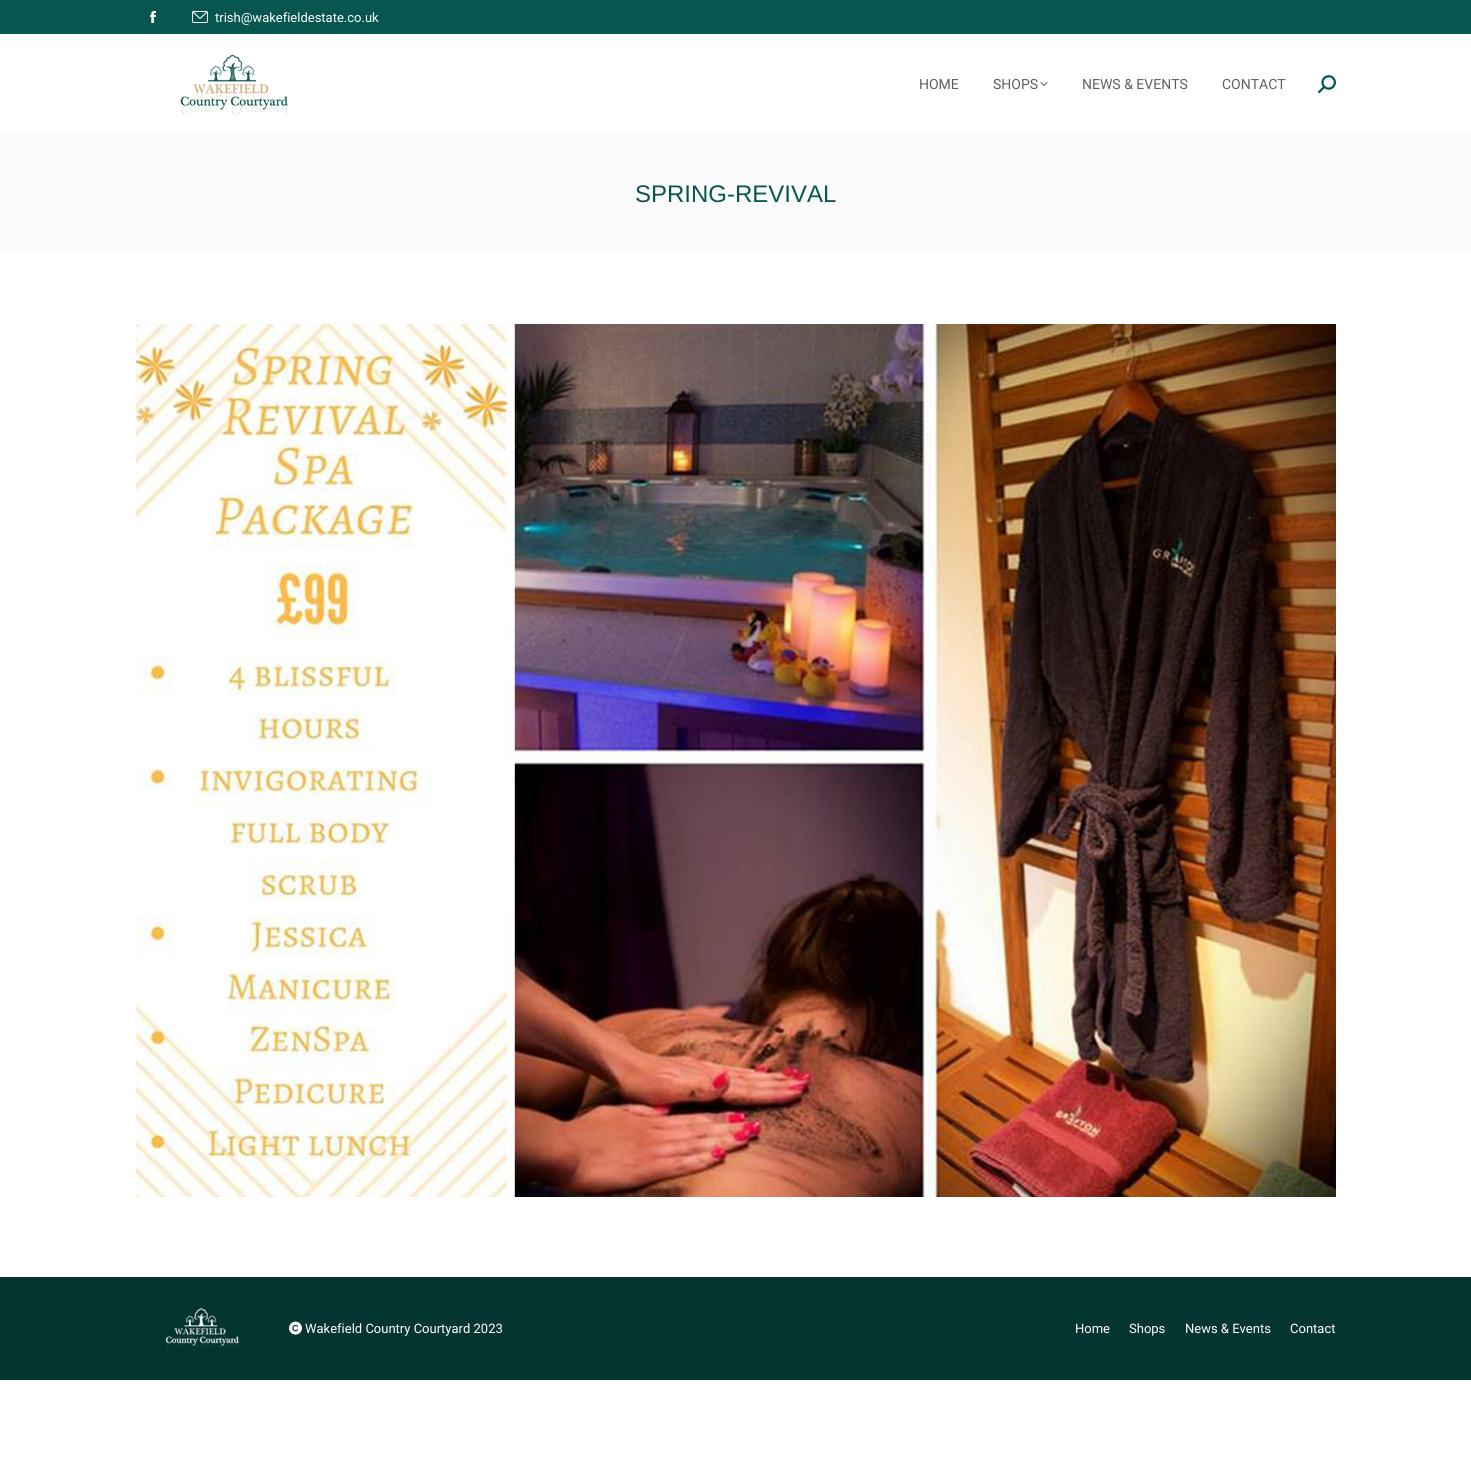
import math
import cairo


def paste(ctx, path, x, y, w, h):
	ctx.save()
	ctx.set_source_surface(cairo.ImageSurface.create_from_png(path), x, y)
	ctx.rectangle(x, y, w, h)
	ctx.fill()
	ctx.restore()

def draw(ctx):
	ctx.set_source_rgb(1, 1, 1)
	ctx.paint()
	ctx.set_source_rgb(0.031, 0.341, 0.314)
	ctx.rectangle(0, 0, 1471, 34)
	ctx.fill()
	paste(ctx, 'media/1.png', 150, 11, 6, 12)
	paste(ctx, 'media/2.png', 192, 11, 16, 12)
	ctx.select_font_face('Roboto')
	ctx.set_font_size(13)
	ctx.set_source_rgb(1, 1, 1)
	ctx.move_to(215, 22)
	ctx.show_text('trish@wakefieldestate.co.uk')
	paste(ctx, 'media/3.png', 180, 54, 108, 61)
	ctx.set_font_size(14)
	ctx.set_source_rgb(0.376, 0.376, 0.376)
	ctx.move_to(919, 89)
	ctx.show_text('HOME')
	ctx.move_to(993, 89)
	ctx.show_text('SHOPS')
	paste(ctx, 'media/4.png', 1040, 82, 8, 4)
	ctx.move_to(1082, 89)
	ctx.show_text('NEWS & EVENTS')
	ctx.move_to(1222, 89)
	ctx.show_text('CONTACT')
	paste(ctx, 'media/5.png', 1318, 75, 18, 19)
	ctx.set_source_rgb(0.984, 0.984, 0.984)
	ctx.rectangle(0, 134, 1471, 120)
	ctx.fill()
	ctx.select_font_face('Liberation Sans')
	ctx.set_font_size(24)
	ctx.set_source_rgb(0.031, 0.341, 0.314)
	ctx.move_to(635, 202)
	ctx.show_text('SPRING-REVIVAL')
	paste(ctx, 'media/6.png', 136, 324, 1200, 873)
	ctx.set_source_rgb(0.02, 0.208, 0.192)
	ctx.rectangle(0, 1277, 1471, 103)
	ctx.fill()
	paste(ctx, 'media/7.png', 166, 1308, 73, 41)
	paste(ctx, 'media/8.png', 289, 1321, 13, 14)
	ctx.select_font_face('Roboto')
	ctx.set_font_size(13)
	ctx.set_source_rgb(1, 1, 1)
	for x, y, s in [
		(305, 1333, 'Wakefield Country Courtyard 2023'),
		(1075, 1333, 'Home'),
		(1129, 1333, 'Shops'),
		(1185, 1333, 'News & Events'),
		(1290, 1333, 'Contact'),
	]:
		ctx.move_to(x, y)
		ctx.show_text(s)


surface = cairo.ImageSurface(cairo.FORMAT_RGB24, 1471, 1477)
ctx = cairo.Context(surface)
options = cairo.FontOptions()
options.set_hint_metrics(cairo.HINT_METRICS_OFF)
options.set_hint_style(cairo.HINT_STYLE_NONE)
ctx.set_font_options(options)
ctx.set_miter_limit(4)
draw(ctx)
surface.write_to_png('image.png')
